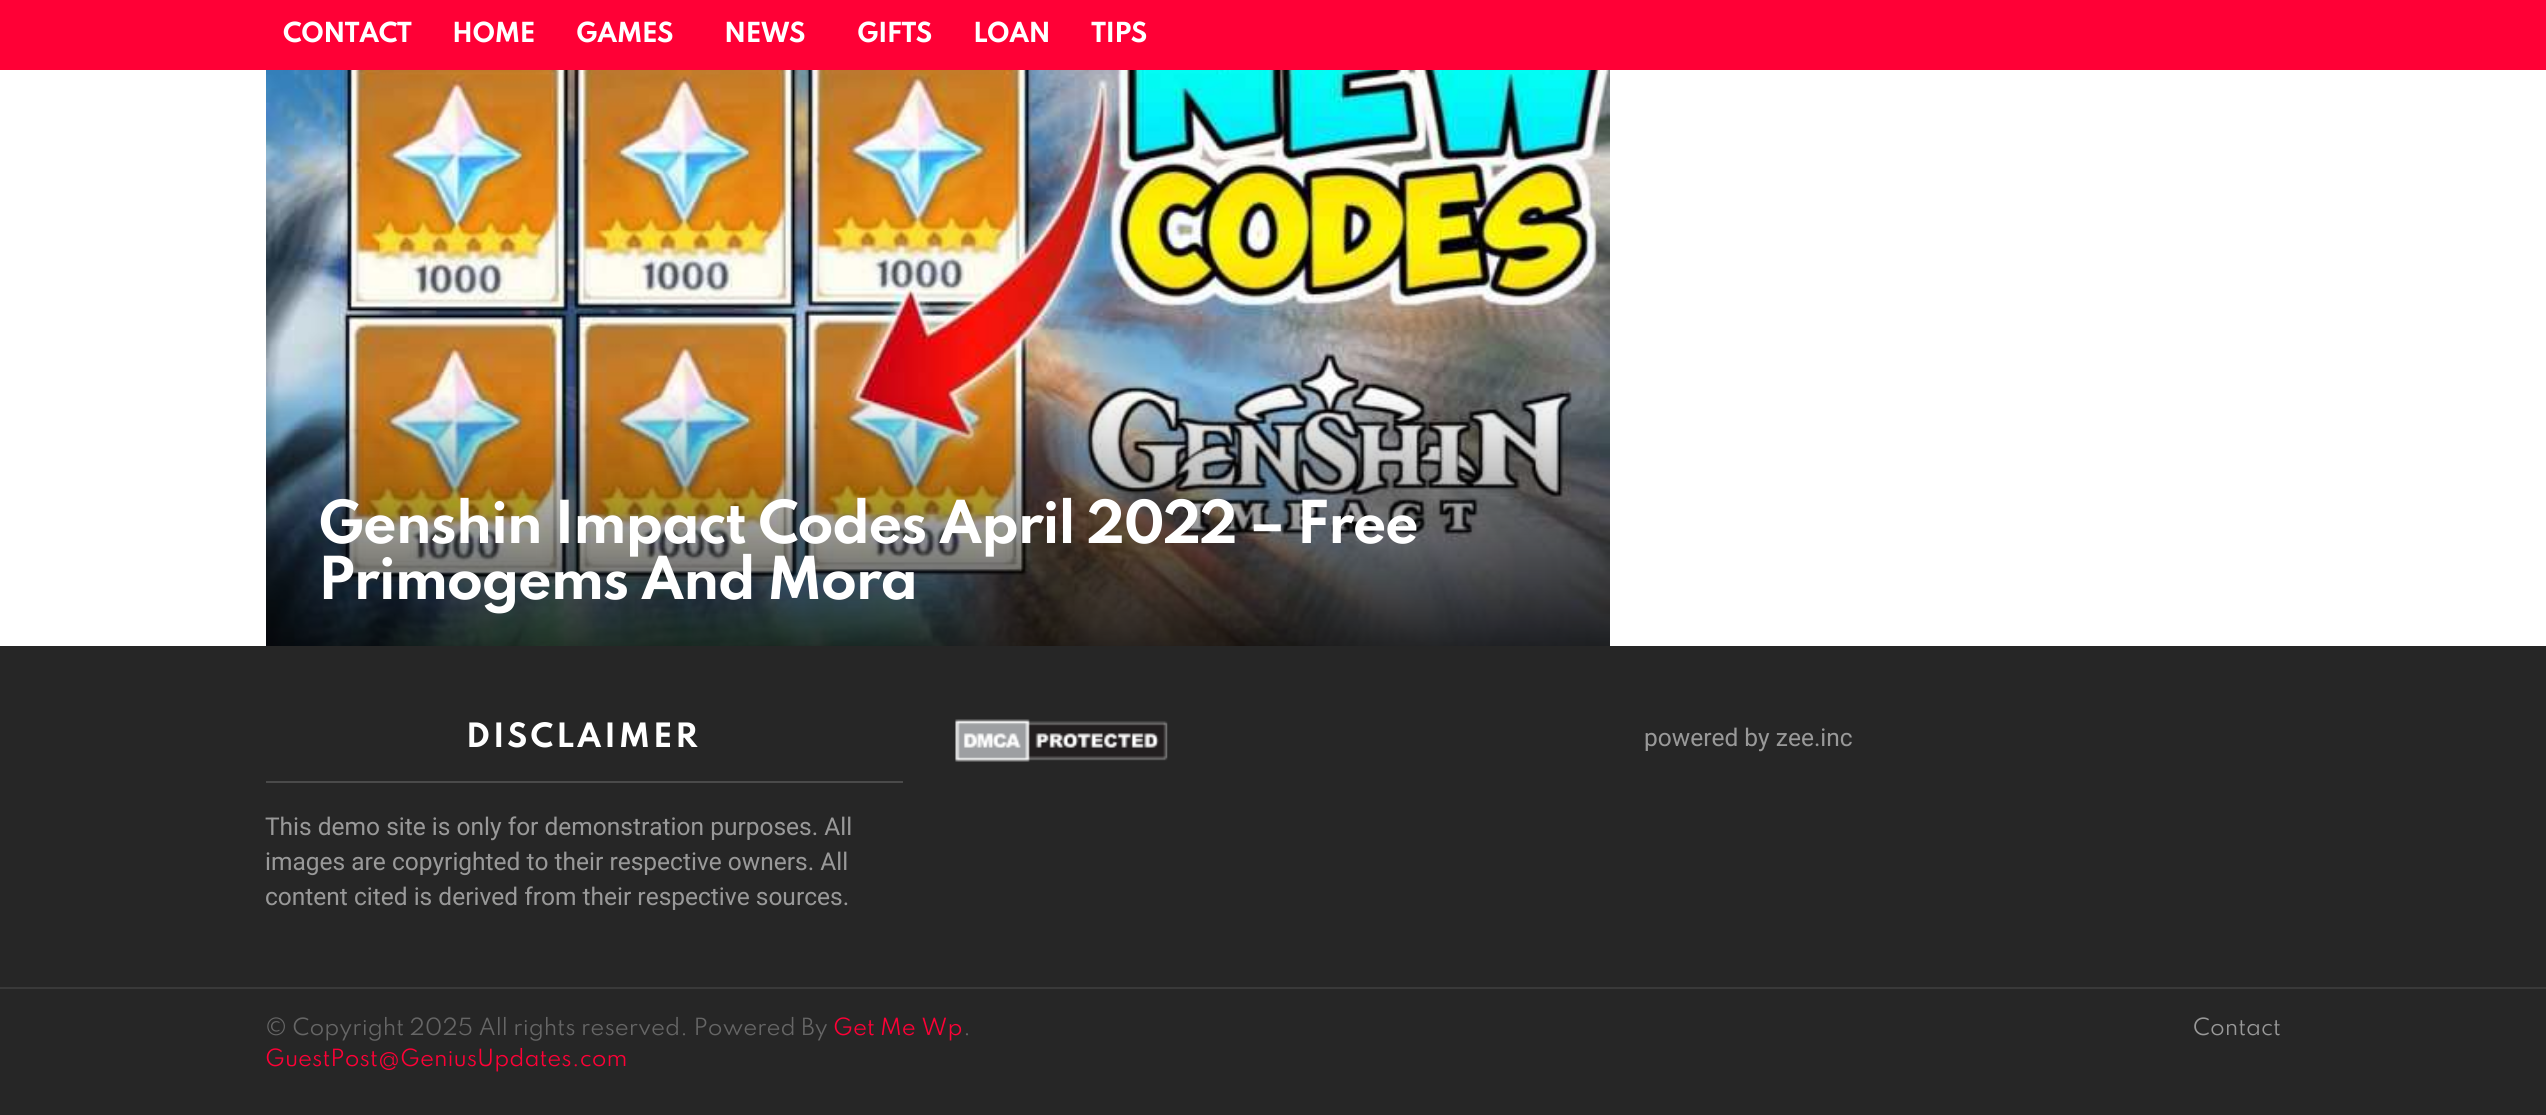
import math
import cairo


def write_spaced(ctx, x, y, s, letter, word):
	ctx.move_to(x, y)
	for ch in s:
		ctx.show_text(ch)
		ctx.rel_move_to(letter + word * (ch == ' '), 0)

def paste(ctx, path, x, y, w, h):
	ctx.save()
	ctx.set_source_surface(cairo.ImageSurface.create_from_png(path), x, y)
	ctx.rectangle(x, y, w, h)
	ctx.fill()
	ctx.restore()

def draw(ctx):
	ctx.set_source_rgb(1, 1, 1)
	ctx.paint()
	ctx.set_source_rgb(1, 0, 0.212)
	ctx.rectangle(0, 0, 2546, 70)
	ctx.fill()
	ctx.select_font_face('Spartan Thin', cairo.FONT_SLANT_NORMAL, cairo.FONT_WEIGHT_BOLD)
	ctx.set_font_size(24.5)
	ctx.set_source_rgb(1, 1, 1)
	for x, y, s in [
		(283, 42, 'CONTACT'),
		(452, 42, 'HOME'),
		(576, 42, 'GAMES'),
		(724, 42, 'NEWS'),
		(857, 42, 'GIFTS'),
		(973, 42, 'LOAN'),
		(1091, 42, 'TIPS'),
	]:
		write_spaced(ctx, x, y, s, -0.75, 0)
	paste(ctx, 'media/1.png', 266, 70, 1344, 576)
	ctx.set_font_size(52.5)
	write_spaced(ctx, 318, 543, 'Genshin Impact Codes April 2022 – Free', -1.55, 0)
	write_spaced(ctx, 318, 599, 'Primogems And Mora', -1.55, 0)
	ctx.set_source_rgb(0.149, 0.149, 0.149)
	ctx.rectangle(0, 646, 2546, 341)
	ctx.fill()
	ctx.set_font_size(29.75)
	ctx.set_source_rgb(1, 1, 1)
	write_spaced(ctx, 466, 747, 'DISCLAIMER', 2.9, 0)
	ctx.set_source_rgb(0.29, 0.29, 0.29)
	ctx.rectangle(266, 781, 637, 2)
	ctx.fill()
	ctx.select_font_face('Roboto')
	ctx.set_font_size(24.5)
	ctx.set_source_rgb(0.6, 0.6, 0.6)
	for x, y, s in [
		(265, 835, 'This demo site is only for demonstration purposes. All'),
		(265, 870, 'images are copyrighted to their respective owners. All'),
		(265, 905, 'content cited is derived from their respective sources.'),
	]:
		ctx.move_to(x, y)
		ctx.show_text(s)
	paste(ctx, 'media/2.png', 955, 719, 213, 43)
	ctx.move_to(1644, 746)
	ctx.show_text('powered by zee.inc')
	ctx.set_source_rgb(0.224, 0.224, 0.224)
	ctx.rectangle(0, 987, 2546, 2)
	ctx.fill()
	ctx.set_source_rgb(0.149, 0.149, 0.149)
	ctx.rectangle(0, 989, 2546, 126)
	ctx.fill()
	ctx.select_font_face('Spartan Thin')
	ctx.set_font_size(21)
	ctx.set_source_rgb(0.4, 0.4, 0.4)
	ctx.move_to(265, 1035)
	ctx.show_text('© Copyright 2025 All rights reserved. Powered By')
	ctx.set_source_rgb(1, 0, 0.212)
	ctx.move_to(833, 1035)
	ctx.show_text('Get Me Wp')
	ctx.set_source_rgb(0.4, 0.4, 0.4)
	ctx.move_to(963, 1035)
	ctx.show_text('.')
	ctx.set_source_rgb(1, 0, 0.212)
	ctx.move_to(265, 1066)
	ctx.show_text('GuestPost@GeniusUpdates.com')
	ctx.set_source_rgb(0.6, 0.6, 0.6)
	ctx.move_to(2193, 1035)
	ctx.show_text('Contact')


surface = cairo.ImageSurface(cairo.FORMAT_RGB24, 2546, 1115)
ctx = cairo.Context(surface)
options = cairo.FontOptions()
options.set_hint_metrics(cairo.HINT_METRICS_OFF)
options.set_hint_style(cairo.HINT_STYLE_NONE)
ctx.set_font_options(options)
ctx.set_miter_limit(4)
draw(ctx)
surface.write_to_png('image.png')
